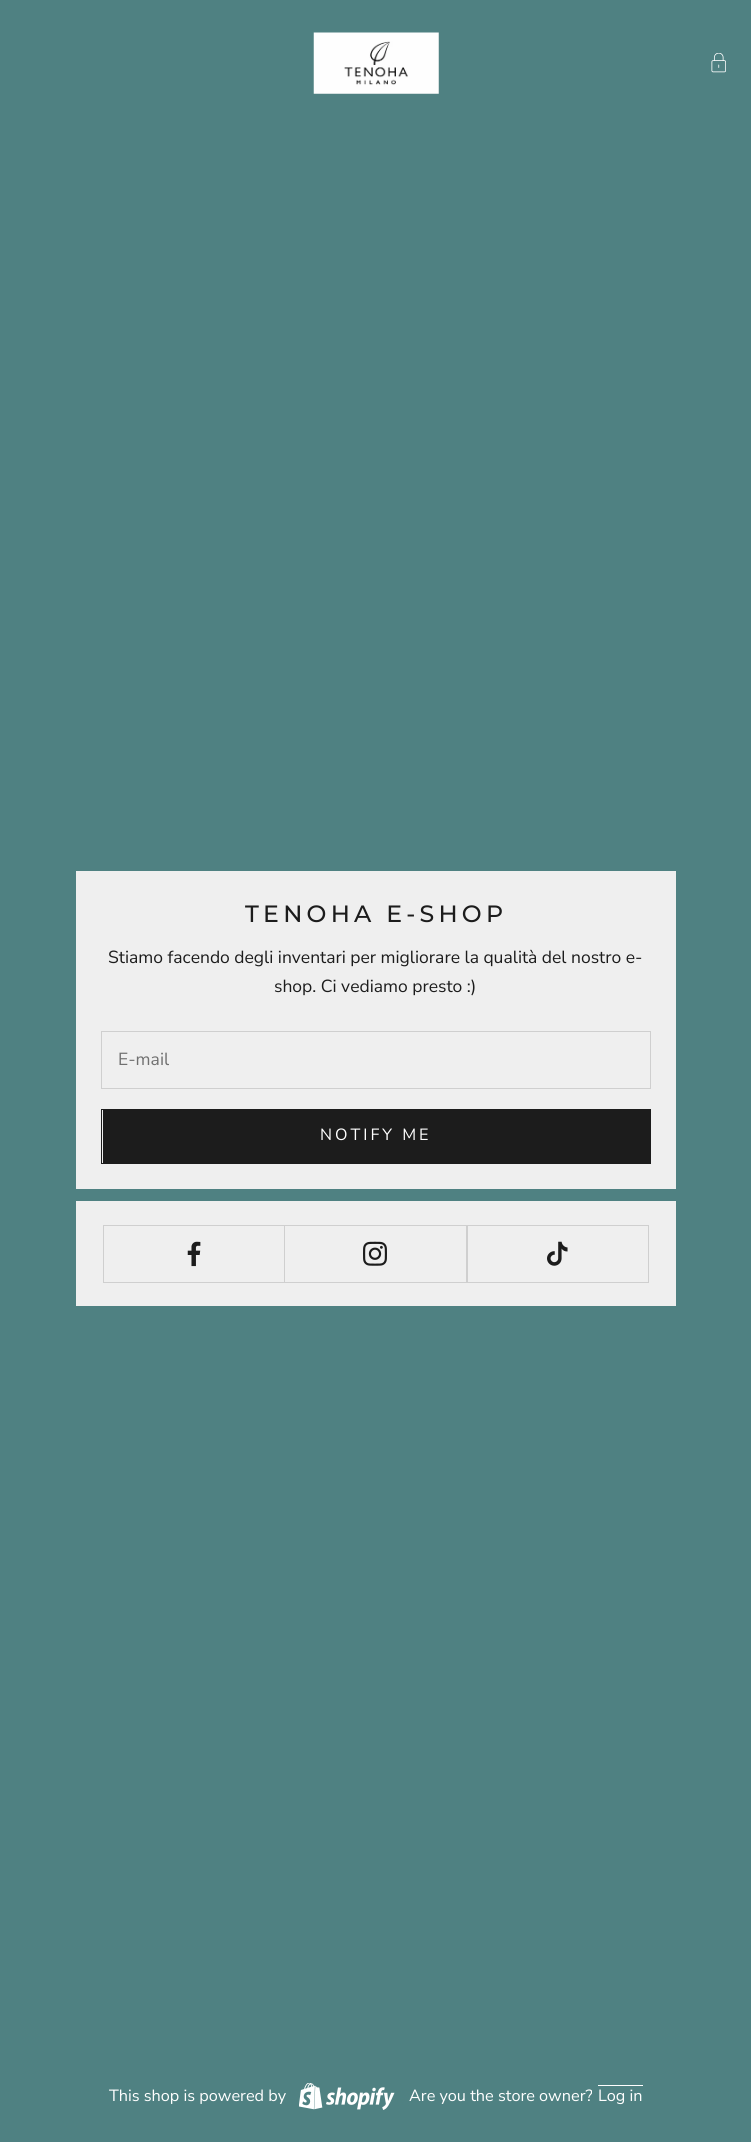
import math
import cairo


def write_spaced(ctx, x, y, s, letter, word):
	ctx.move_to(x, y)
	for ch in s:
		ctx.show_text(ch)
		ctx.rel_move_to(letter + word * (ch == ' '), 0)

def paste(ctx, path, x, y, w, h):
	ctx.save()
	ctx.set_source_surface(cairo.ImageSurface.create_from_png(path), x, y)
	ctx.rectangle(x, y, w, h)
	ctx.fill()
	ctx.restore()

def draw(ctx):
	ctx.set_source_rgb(0.31, 0.506, 0.51)
	ctx.paint()
	paste(ctx, 'media/1.png', 313, 32, 126, 62)
	paste(ctx, 'media/2.png', 711, 53, 15, 20)
	ctx.set_source_rgb(0.937, 0.937, 0.937)
	ctx.rectangle(76, 871, 600, 318)
	ctx.fill()
	ctx.select_font_face('Montserrat Medium')
	ctx.set_font_size(23.6)
	ctx.set_source_rgb(0.11, 0.11, 0.11)
	write_spaced(ctx, 245, 922, 'TENOHA E-SHOP', 4.25, 0)
	ctx.select_font_face('Nunito Sans')
	ctx.set_font_size(17.5)
	ctx.move_to(108, 963)
	ctx.show_text('Stiamo facendo degli inventari per migliorare la qualità del nostro e-')
	ctx.move_to(274, 992)
	ctx.show_text('shop. Ci vediamo presto :)')
	ctx.rectangle(101.5, 1031.5, 549, 57)
	ctx.set_source_rgb(0.812, 0.812, 0.812)
	ctx.set_line_width(1)
	ctx.stroke()
	ctx.set_source_rgb(0.439, 0.439, 0.439)
	ctx.move_to(118, 1065)
	ctx.show_text('E-mail')
	ctx.set_source_rgb(0.11, 0.11, 0.11)
	ctx.rectangle(103, 1110, 547, 53)
	ctx.fill()
	ctx.rectangle(101.5, 1109.5, 549, 54)
	ctx.stroke()
	ctx.set_font_size(16.25)
	ctx.set_source_rgb(1, 1, 1)
	write_spaced(ctx, 320, 1140, 'NOTIFY ME', 3, 0)
	ctx.set_source_rgb(0.937, 0.937, 0.937)
	ctx.rectangle(76, 1201, 600, 105)
	ctx.fill()
	ctx.rectangle(103.5, 1225.5, 181, 57)
	ctx.set_source_rgb(0.812, 0.812, 0.812)
	ctx.stroke()
	paste(ctx, 'media/3.png', 187, 1241, 14, 26)
	ctx.rectangle(284.5, 1225.5, 183, 57)
	ctx.stroke()
	paste(ctx, 'media/4.png', 363, 1241, 24, 25)
	ctx.rectangle(466.5, 1225.5, 182, 57)
	ctx.stroke()
	paste(ctx, 'media/5.png', 547, 1241, 21, 25)
	ctx.set_source_rgb(1, 1, 1)
	ctx.move_to(109, 2101)
	ctx.show_text('This shop is powered by')
	paste(ctx, 'media/6.png', 299, 2083, 96, 27)
	ctx.move_to(409, 2101)
	ctx.show_text('Are you the store owner?')
	ctx.move_to(598, 2101)
	ctx.show_text('Log in')
	ctx.rectangle(598, 2085, 45, 1)
	ctx.fill()


surface = cairo.ImageSurface(cairo.FORMAT_RGB24, 751, 2142)
ctx = cairo.Context(surface)
options = cairo.FontOptions()
options.set_hint_metrics(cairo.HINT_METRICS_OFF)
options.set_hint_style(cairo.HINT_STYLE_NONE)
ctx.set_font_options(options)
ctx.set_miter_limit(4)
draw(ctx)
surface.write_to_png('image.png')
